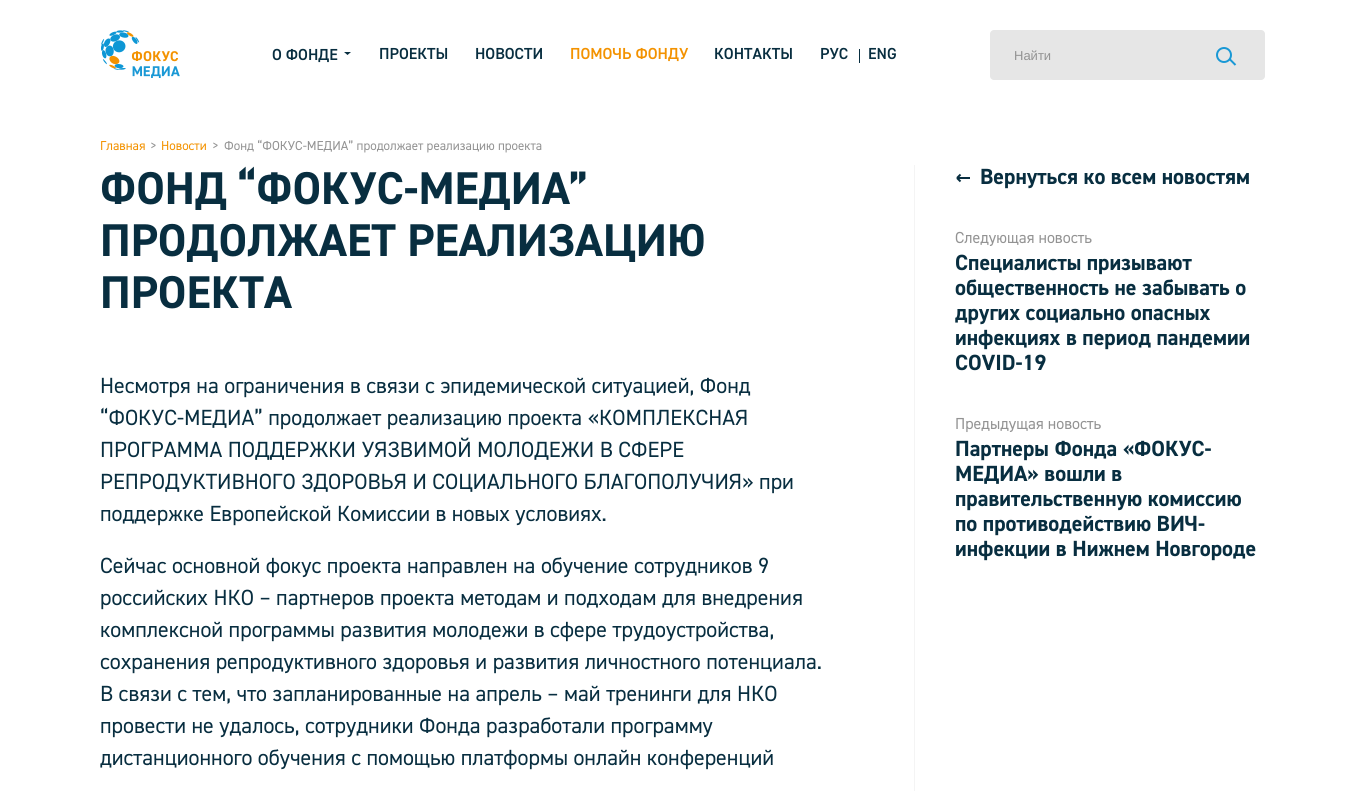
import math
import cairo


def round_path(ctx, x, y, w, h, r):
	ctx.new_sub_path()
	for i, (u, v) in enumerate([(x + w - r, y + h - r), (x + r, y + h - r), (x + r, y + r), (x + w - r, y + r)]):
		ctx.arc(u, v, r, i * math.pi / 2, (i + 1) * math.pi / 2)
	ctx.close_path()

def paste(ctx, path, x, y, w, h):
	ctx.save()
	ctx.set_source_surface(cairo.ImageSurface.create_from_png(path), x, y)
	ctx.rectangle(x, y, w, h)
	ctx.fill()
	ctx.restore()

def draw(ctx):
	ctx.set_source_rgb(1, 1, 1)
	ctx.paint()
	paste(ctx, 'media/1.png', 101, 30, 79, 48)
	ctx.select_font_face('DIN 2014 SemiBold')
	ctx.set_font_size(16)
	ctx.set_source_rgb(0.035, 0.18, 0.251)
	ctx.move_to(272, 60)
	ctx.show_text('О ФОНДЕ')
	ctx.new_path()
	ctx.move_to(344, 52)
	ctx.line_to(347.5, 55)
	ctx.line_to(351, 52)
	ctx.fill()
	ctx.move_to(379, 59)
	ctx.show_text('ПРОЕКТЫ')
	ctx.move_to(475, 59)
	ctx.show_text('НОВОСТИ')
	ctx.set_source_rgb(0.953, 0.573, 0)
	ctx.move_to(570, 59)
	ctx.show_text('ПОМОЧЬ ФОНДУ')
	ctx.set_source_rgb(0.035, 0.18, 0.251)
	ctx.move_to(714, 59)
	ctx.show_text('КОНТАКТЫ')
	ctx.move_to(820, 59)
	ctx.show_text('РУС')
	ctx.rectangle(859, 49, 1, 14)
	ctx.fill()
	ctx.move_to(868, 59)
	ctx.show_text('ENG')
	ctx.set_source_rgb(0.902, 0.902, 0.902)
	round_path(ctx, 990, 30, 275, 50, 4)
	ctx.fill()
	ctx.select_font_face('Liberation Sans')
	ctx.set_font_size(13)
	ctx.set_source_rgb(0.576, 0.576, 0.576)
	ctx.move_to(1014, 60)
	ctx.show_text('Найти')
	ctx.new_path()
	ctx.arc(1224, 55, 7, 0, 2 * math.pi)
	ctx.set_source_rgb(0.098, 0.596, 0.835)
	ctx.stroke()
	ctx.new_path()
	ctx.move_to(1229.5, 59)
	ctx.line_to(1235.5, 65)
	ctx.stroke()
	ctx.select_font_face('DIN 2014')
	ctx.set_source_rgb(0.953, 0.573, 0)
	ctx.move_to(100, 150)
	ctx.show_text('Главная')
	ctx.set_source_rgb(0.576, 0.576, 0.576)
	ctx.move_to(150, 150)
	ctx.show_text('>')
	ctx.set_source_rgb(0.953, 0.573, 0)
	ctx.move_to(161, 150)
	ctx.show_text('Новости')
	ctx.set_source_rgb(0.576, 0.576, 0.576)
	ctx.move_to(212, 150)
	ctx.show_text('>')
	ctx.move_to(224, 150)
	ctx.show_text('Фонд “ФОКУС-МЕДИА” продолжает реализацию проекта')
	ctx.set_source_rgb(0.957, 0.957, 0.957)
	ctx.rectangle(914, 165, 1, 626)
	ctx.fill()
	ctx.select_font_face('DIN 2014', cairo.FONT_SLANT_NORMAL, cairo.FONT_WEIGHT_BOLD)
	ctx.set_font_size(46)
	ctx.set_source_rgb(0.035, 0.18, 0.251)
	for x, y, s in [
		(100, 204, 'ФОНД “ФОКУС-МЕДИА”'),
		(100, 256, 'ПРОДОЛЖАЕТ РЕАЛИЗАЦИЮ'),
		(100, 308, 'ПРОЕКТА'),
	]:
		ctx.move_to(x, y)
		ctx.show_text(s)
	ctx.select_font_face('DIN 2014')
	ctx.set_font_size(22)
	for x, y, s in [
		(100, 393, 'Несмотря на ограничения в связи с эпидемической ситуацией, Фонд'),
		(100, 425, '“ФОКУС-МЕДИА” продолжает реализацию проекта «КОМПЛЕКСНАЯ'),
		(100, 457, 'ПРОГРАММА ПОДДЕРЖКИ УЯЗВИМОЙ МОЛОДЕЖИ В СФЕРЕ'),
		(100, 489, 'РЕПРОДУКТИВНОГО ЗДОРОВЬЯ И СОЦИАЛЬНОГО БЛАГОПОЛУЧИЯ» при'),
		(100, 521, 'поддержке Европейской Комиссии в новых условиях.'),
		(100, 573, 'Сейчас основной фокус проекта направлен на обучение сотрудников 9'),
		(100, 605, 'российских НКО – партнеров проекта методам и подходам для внедрения'),
		(100, 637, 'комплексной программы развития молодежи в сфере трудоустройства,'),
		(100, 669, 'сохранения репродуктивного здоровья и развития личностного потенциала.'),
		(100, 701, 'В связи с тем, что запланированные на апрель – май тренинги для НКО'),
		(100, 733, 'провести не удалось, сотрудники Фонда разработали программу'),
		(100, 765, 'дистанционного обучения с помощью платформы онлайн конференций'),
	]:
		ctx.move_to(x, y)
		ctx.show_text(s)
	ctx.new_path()
	ctx.move_to(970, 178)
	ctx.line_to(957, 178)
	ctx.move_to(957, 178)
	ctx.line_to(960.5, 174.5)
	ctx.move_to(957, 178)
	ctx.line_to(960.5, 181.5)
	ctx.stroke()
	ctx.select_font_face('DIN 2014', cairo.FONT_SLANT_NORMAL, cairo.FONT_WEIGHT_BOLD)
	ctx.move_to(980, 184)
	ctx.show_text('Вернуться ко всем новостям')
	ctx.select_font_face('DIN 2014')
	ctx.set_font_size(16)
	ctx.set_source_rgb(0.576, 0.576, 0.576)
	ctx.move_to(955, 243)
	ctx.show_text('Следующая новость')
	ctx.select_font_face('DIN 2014', cairo.FONT_SLANT_NORMAL, cairo.FONT_WEIGHT_BOLD)
	ctx.set_font_size(22)
	ctx.set_source_rgb(0.035, 0.18, 0.251)
	for x, y, s in [
		(955, 270, 'Специалисты призывают'),
		(955, 295, 'общественность не забывать о'),
		(955, 320, 'других социально опасных'),
		(955, 345, 'инфекциях в период пандемии'),
		(955, 370, 'COVID-19'),
	]:
		ctx.move_to(x, y)
		ctx.show_text(s)
	ctx.select_font_face('DIN 2014')
	ctx.set_font_size(16)
	ctx.set_source_rgb(0.576, 0.576, 0.576)
	ctx.move_to(955, 429)
	ctx.show_text('Предыдущая новость')
	ctx.select_font_face('DIN 2014', cairo.FONT_SLANT_NORMAL, cairo.FONT_WEIGHT_BOLD)
	ctx.set_font_size(22)
	ctx.set_source_rgb(0.035, 0.18, 0.251)
	for x, y, s in [
		(955, 456, 'Партнеры Фонда «ФОКУС-'),
		(955, 481, 'МЕДИА» вошли в'),
		(955, 506, 'правительственную комиссию'),
		(955, 531, 'по противодействию ВИЧ-'),
		(955, 556, 'инфекции в Нижнем Новгороде'),
	]:
		ctx.move_to(x, y)
		ctx.show_text(s)


surface = cairo.ImageSurface(cairo.FORMAT_RGB24, 1364, 791)
ctx = cairo.Context(surface)
options = cairo.FontOptions()
options.set_hint_metrics(cairo.HINT_METRICS_OFF)
options.set_hint_style(cairo.HINT_STYLE_NONE)
ctx.set_font_options(options)
ctx.set_miter_limit(4)
draw(ctx)
surface.write_to_png('image.png')
